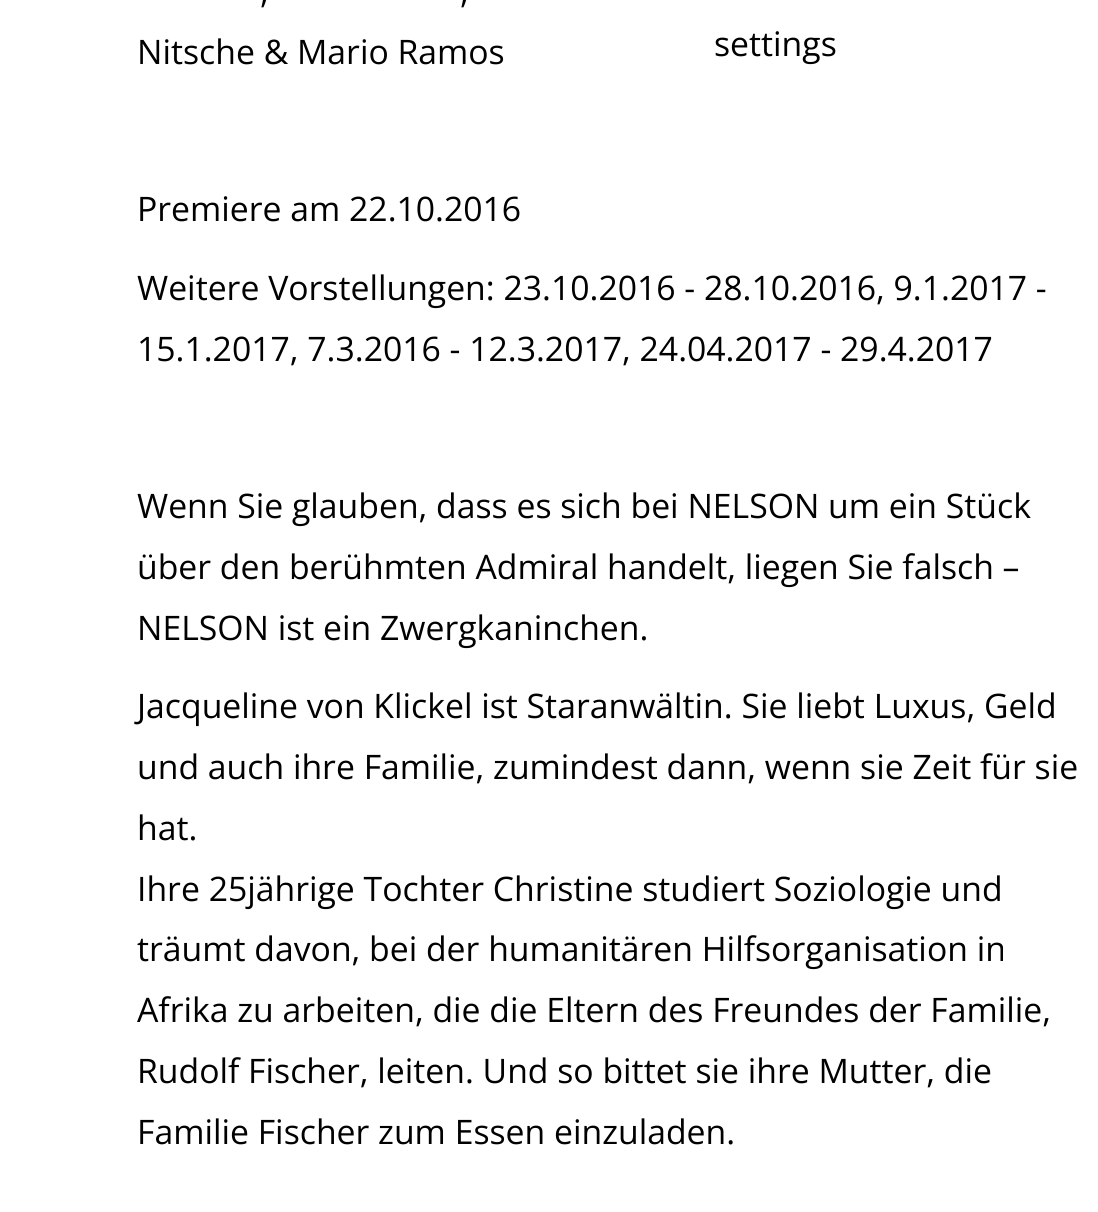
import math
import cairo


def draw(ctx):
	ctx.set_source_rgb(1, 1, 1)
	ctx.paint()
	ctx.select_font_face('Open Sans')
	ctx.set_font_size(33.75)
	ctx.set_source_rgb(0, 0, 0)
	for x, y, s in [
		(260, 3, ','),
		(460, 3, ','),
		(137, 64, 'Nitsche & Mario Ramos'),
		(714, 56, 'settings'),
		(137, 221, 'Premiere am 22.10.2016'),
		(137, 300, 'Weitere Vorstellungen: 23.10.2016 - 28.10.2016, 9.1.2017 -'),
		(137, 361, '15.1.2017, 7.3.2016 - 12.3.2017, 24.04.2017 - 29.4.2017'),
		(137, 518, 'Wenn Sie glauben, dass es sich bei NELSON um ein Stück'),
		(137, 579, 'über den berühmten Admiral handelt, liegen Sie falsch –'),
		(137, 640, 'NELSON ist ein Zwergkaninchen.'),
		(137, 718, 'Jacqueline von Klickel ist Staranwältin. Sie liebt Luxus, Geld'),
		(137, 779, 'und auch ihre Familie, zumindest dann, wenn sie Zeit für sie'),
		(137, 840, 'hat.'),
		(137, 901, 'Ihre 25jährige Tochter Christine studiert Soziologie und'),
		(137, 961, 'träumt davon, bei der humanitären Hilfsorganisation in'),
		(137, 1022, 'Afrika zu arbeiten, die die Eltern des Freundes der Familie,'),
		(137, 1083, 'Rudolf Fischer, leiten. Und so bittet sie ihre Mutter, die'),
		(137, 1144, 'Familie Fischer zum Essen einzuladen.'),
	]:
		ctx.move_to(x, y)
		ctx.show_text(s)


surface = cairo.ImageSurface(cairo.FORMAT_RGB24, 1098, 1212)
ctx = cairo.Context(surface)
options = cairo.FontOptions()
options.set_hint_metrics(cairo.HINT_METRICS_OFF)
options.set_hint_style(cairo.HINT_STYLE_NONE)
ctx.set_font_options(options)
ctx.set_miter_limit(4)
draw(ctx)
surface.write_to_png('image.png')
